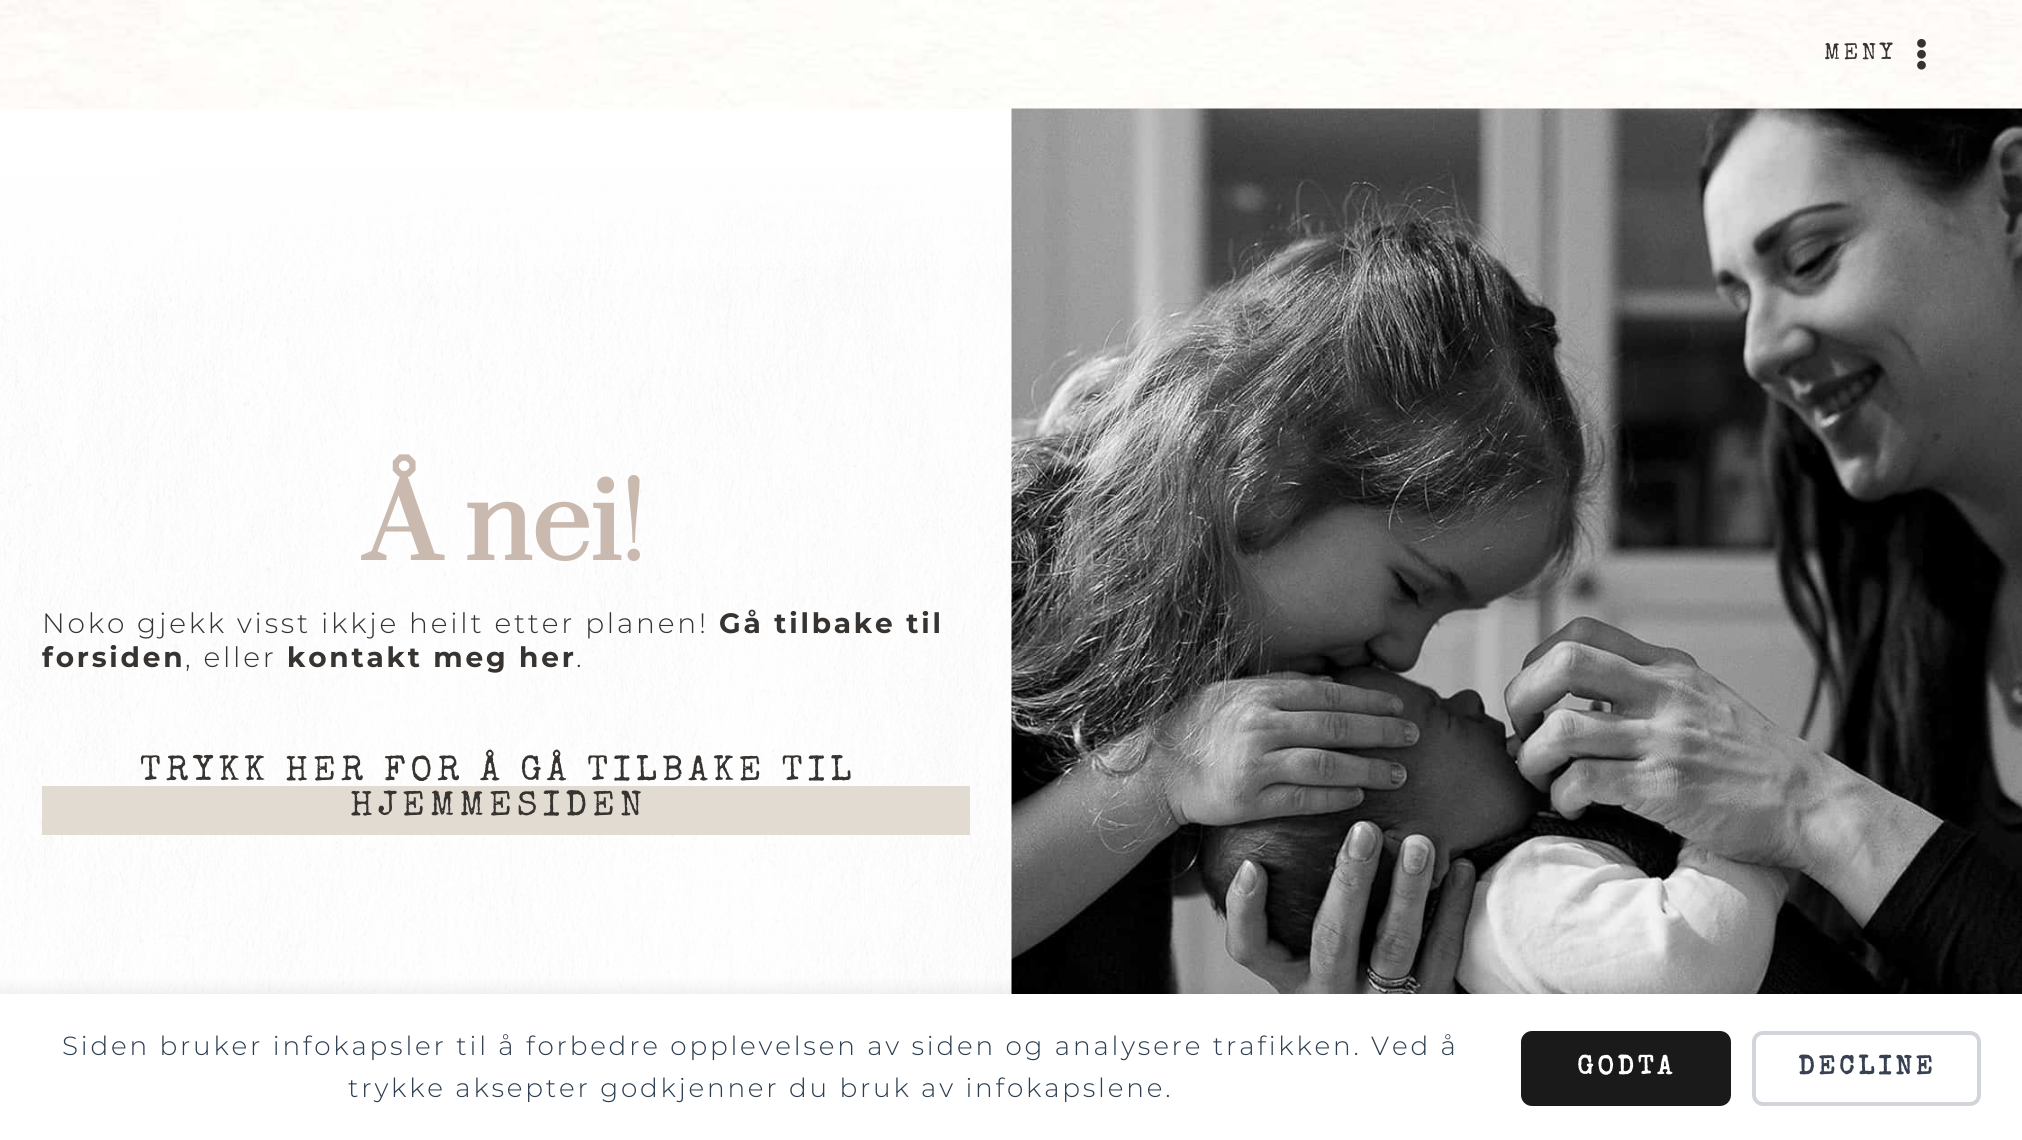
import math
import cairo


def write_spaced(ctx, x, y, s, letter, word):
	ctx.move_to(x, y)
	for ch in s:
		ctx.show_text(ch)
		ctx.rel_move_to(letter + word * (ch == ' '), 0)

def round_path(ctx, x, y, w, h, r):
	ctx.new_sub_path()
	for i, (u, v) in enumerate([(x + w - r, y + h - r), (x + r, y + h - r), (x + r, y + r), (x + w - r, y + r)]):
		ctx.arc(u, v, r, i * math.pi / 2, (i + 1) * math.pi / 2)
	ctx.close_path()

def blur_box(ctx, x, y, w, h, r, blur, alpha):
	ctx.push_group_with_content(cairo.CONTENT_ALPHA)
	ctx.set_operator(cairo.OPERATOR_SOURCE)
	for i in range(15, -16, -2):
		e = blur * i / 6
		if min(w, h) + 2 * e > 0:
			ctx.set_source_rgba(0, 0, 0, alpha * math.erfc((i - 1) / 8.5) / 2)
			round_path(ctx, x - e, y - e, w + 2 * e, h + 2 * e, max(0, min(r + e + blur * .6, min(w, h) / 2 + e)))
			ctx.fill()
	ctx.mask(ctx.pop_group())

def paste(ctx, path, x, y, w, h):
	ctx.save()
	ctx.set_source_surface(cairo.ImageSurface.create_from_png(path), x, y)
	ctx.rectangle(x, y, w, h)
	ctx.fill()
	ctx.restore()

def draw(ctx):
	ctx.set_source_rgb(1, 1, 1)
	ctx.paint()
	paste(ctx, 'media/1.png', 0, 0, 2022, 109)
	ctx.select_font_face('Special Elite')
	ctx.set_font_size(23)
	ctx.set_source_rgb(0.212, 0.2, 0.188)
	write_spaced(ctx, 1824, 59, 'MENY', 3.5, 0)
	paste(ctx, 'media/2.png', 1917, 38, 9, 32)
	paste(ctx, 'media/3.png', 0, 168, 1012, 826)
	ctx.set_source_rgba(1, 1, 1, 0.75)
	ctx.rectangle(0, 168, 1012, 826)
	ctx.fill()
	ctx.select_font_face('Prata', cairo.FONT_SLANT_NORMAL, cairo.FONT_WEIGHT_BOLD)
	ctx.set_font_size(105)
	ctx.set_source_rgb(0.792, 0.725, 0.686)
	ctx.move_to(364, 560)
	ctx.show_text('Å nei')
	ctx.select_font_face('Prata')
	ctx.move_to(620, 560)
	ctx.show_text('!')
	ctx.select_font_face('Montserrat Light')
	ctx.set_font_size(28)
	ctx.set_source_rgb(0.212, 0.2, 0.188)
	write_spaced(ctx, 42, 633, 'Noko gjekk visst ikkje heilt etter planen!', 2.8, 0)
	ctx.select_font_face('Montserrat', cairo.FONT_SLANT_NORMAL, cairo.FONT_WEIGHT_BOLD)
	write_spaced(ctx, 719, 633, 'Gå tilbake til', 2.8, 0)
	write_spaced(ctx, 42, 667, 'forsiden', 2.8, 0)
	ctx.select_font_face('Montserrat Light')
	write_spaced(ctx, 185, 667, ', eller', 2.8, 0)
	ctx.select_font_face('Montserrat', cairo.FONT_SLANT_NORMAL, cairo.FONT_WEIGHT_BOLD)
	write_spaced(ctx, 287, 667, 'kontakt meg her', 2.8, 0)
	ctx.select_font_face('Montserrat Light')
	write_spaced(ctx, 576, 667, '.', 2.8, 0)
	ctx.set_source_rgb(0.882, 0.859, 0.824)
	ctx.rectangle(42, 786, 928, 49)
	ctx.fill()
	ctx.select_font_face('Special Elite')
	ctx.set_font_size(35)
	ctx.set_source_rgb(0.212, 0.2, 0.188)
	write_spaced(ctx, 140, 780, 'TRYKK HER FOR Å GÅ TILBAKE TIL', 5.25, 0)
	write_spaced(ctx, 350, 815, 'HJEMMESIDEN', 5.25, 0)
	paste(ctx, 'media/4.png', 1011, 108, 1011, 886)
	ctx.set_source_rgb(0, 0, 0)
	blur_box(ctx, 0, 991, 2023, 147, 0, 9, 0.08)
	ctx.set_source_rgb(1, 1, 1)
	ctx.rectangle(0, 994, 2022, 146)
	ctx.fill()
	ctx.select_font_face('Montserrat Light')
	ctx.set_font_size(26.25)
	ctx.set_source_rgb(0.173, 0.243, 0.314)
	write_spaced(ctx, 62, 1055, 'Siden bruker infokapsler til å forbedre opplevelsen av siden og analysere trafikken. Ved å', 2.8, 0)
	write_spaced(ctx, 348, 1097, 'trykke aksepter godkjenner du bruk av infokapslene.', 2.8, 0)
	ctx.set_source_rgb(0.102, 0.102, 0.102)
	round_path(ctx, 1521, 1031, 210, 75, 11)
	ctx.fill()
	ctx.select_font_face('Special Elite', cairo.FONT_SLANT_NORMAL, cairo.FONT_WEIGHT_BOLD)
	ctx.set_source_rgb(1, 1, 1)
	write_spaced(ctx, 1577, 1074, 'GODTA', 4, 0)
	round_path(ctx, 1754, 1033, 225, 71, 9)
	ctx.set_source_rgb(0.82, 0.835, 0.859)
	ctx.set_line_width(4)
	ctx.stroke()
	ctx.set_source_rgb(0.216, 0.255, 0.318)
	write_spaced(ctx, 1798, 1074, 'DECLINE', 4, 0)


surface = cairo.ImageSurface(cairo.FORMAT_RGB24, 2022, 1140)
ctx = cairo.Context(surface)
options = cairo.FontOptions()
options.set_hint_metrics(cairo.HINT_METRICS_OFF)
options.set_hint_style(cairo.HINT_STYLE_NONE)
ctx.set_font_options(options)
ctx.set_miter_limit(4)
draw(ctx)
surface.write_to_png('image.png')
